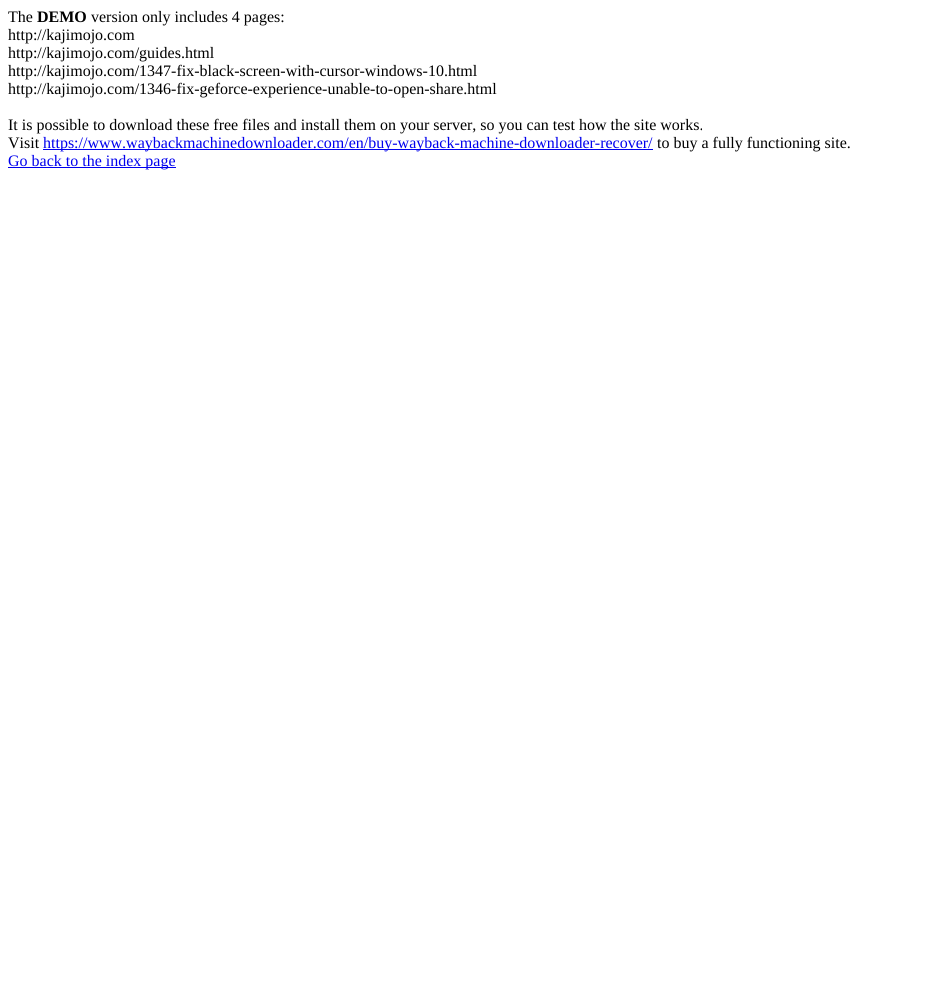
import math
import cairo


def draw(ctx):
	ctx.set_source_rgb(1, 1, 1)
	ctx.paint()
	ctx.select_font_face('Liberation Serif')
	ctx.set_font_size(16)
	ctx.set_source_rgb(0, 0, 0)
	ctx.move_to(8, 22)
	ctx.show_text('The')
	ctx.select_font_face('Liberation Serif', cairo.FONT_SLANT_NORMAL, cairo.FONT_WEIGHT_BOLD)
	ctx.move_to(37, 22)
	ctx.show_text('DEMO')
	ctx.select_font_face('Liberation Serif')
	for x, y, s in [
		(91, 22, 'version only includes 4 pages:'),
		(8, 40, 'http://kajimojo.com'),
		(8, 58, 'http://kajimojo.com/guides.html'),
		(8, 76, 'http://kajimojo.com/1347-fix-black-screen-with-cursor-windows-10.html'),
		(8, 94, 'http://kajimojo.com/1346-fix-geforce-experience-unable-to-open-share.html'),
		(8, 130, 'It is possible to download these free files and install them on your server, so you can test how the site works.'),
		(8, 148, 'Visit'),
	]:
		ctx.move_to(x, y)
		ctx.show_text(s)
	ctx.set_source_rgb(0, 0, 0.933)
	ctx.rectangle(43, 149, 610, 1)
	ctx.fill()
	ctx.move_to(43, 148)
	ctx.show_text('https://www.waybackmachinedownloader.com/en/buy-wayback-machine-downloader-recover/')
	ctx.set_source_rgb(0, 0, 0)
	ctx.move_to(657, 148)
	ctx.show_text('to buy a fully functioning site.')
	ctx.set_source_rgb(0, 0, 0.933)
	ctx.rectangle(8, 167, 168, 1)
	ctx.fill()
	ctx.move_to(8, 166)
	ctx.show_text('Go back to the index page')


surface = cairo.ImageSurface(cairo.FORMAT_RGB24, 940, 993)
ctx = cairo.Context(surface)
options = cairo.FontOptions()
options.set_hint_metrics(cairo.HINT_METRICS_OFF)
options.set_hint_style(cairo.HINT_STYLE_NONE)
ctx.set_font_options(options)
ctx.set_miter_limit(4)
draw(ctx)
surface.write_to_png('image.png')
